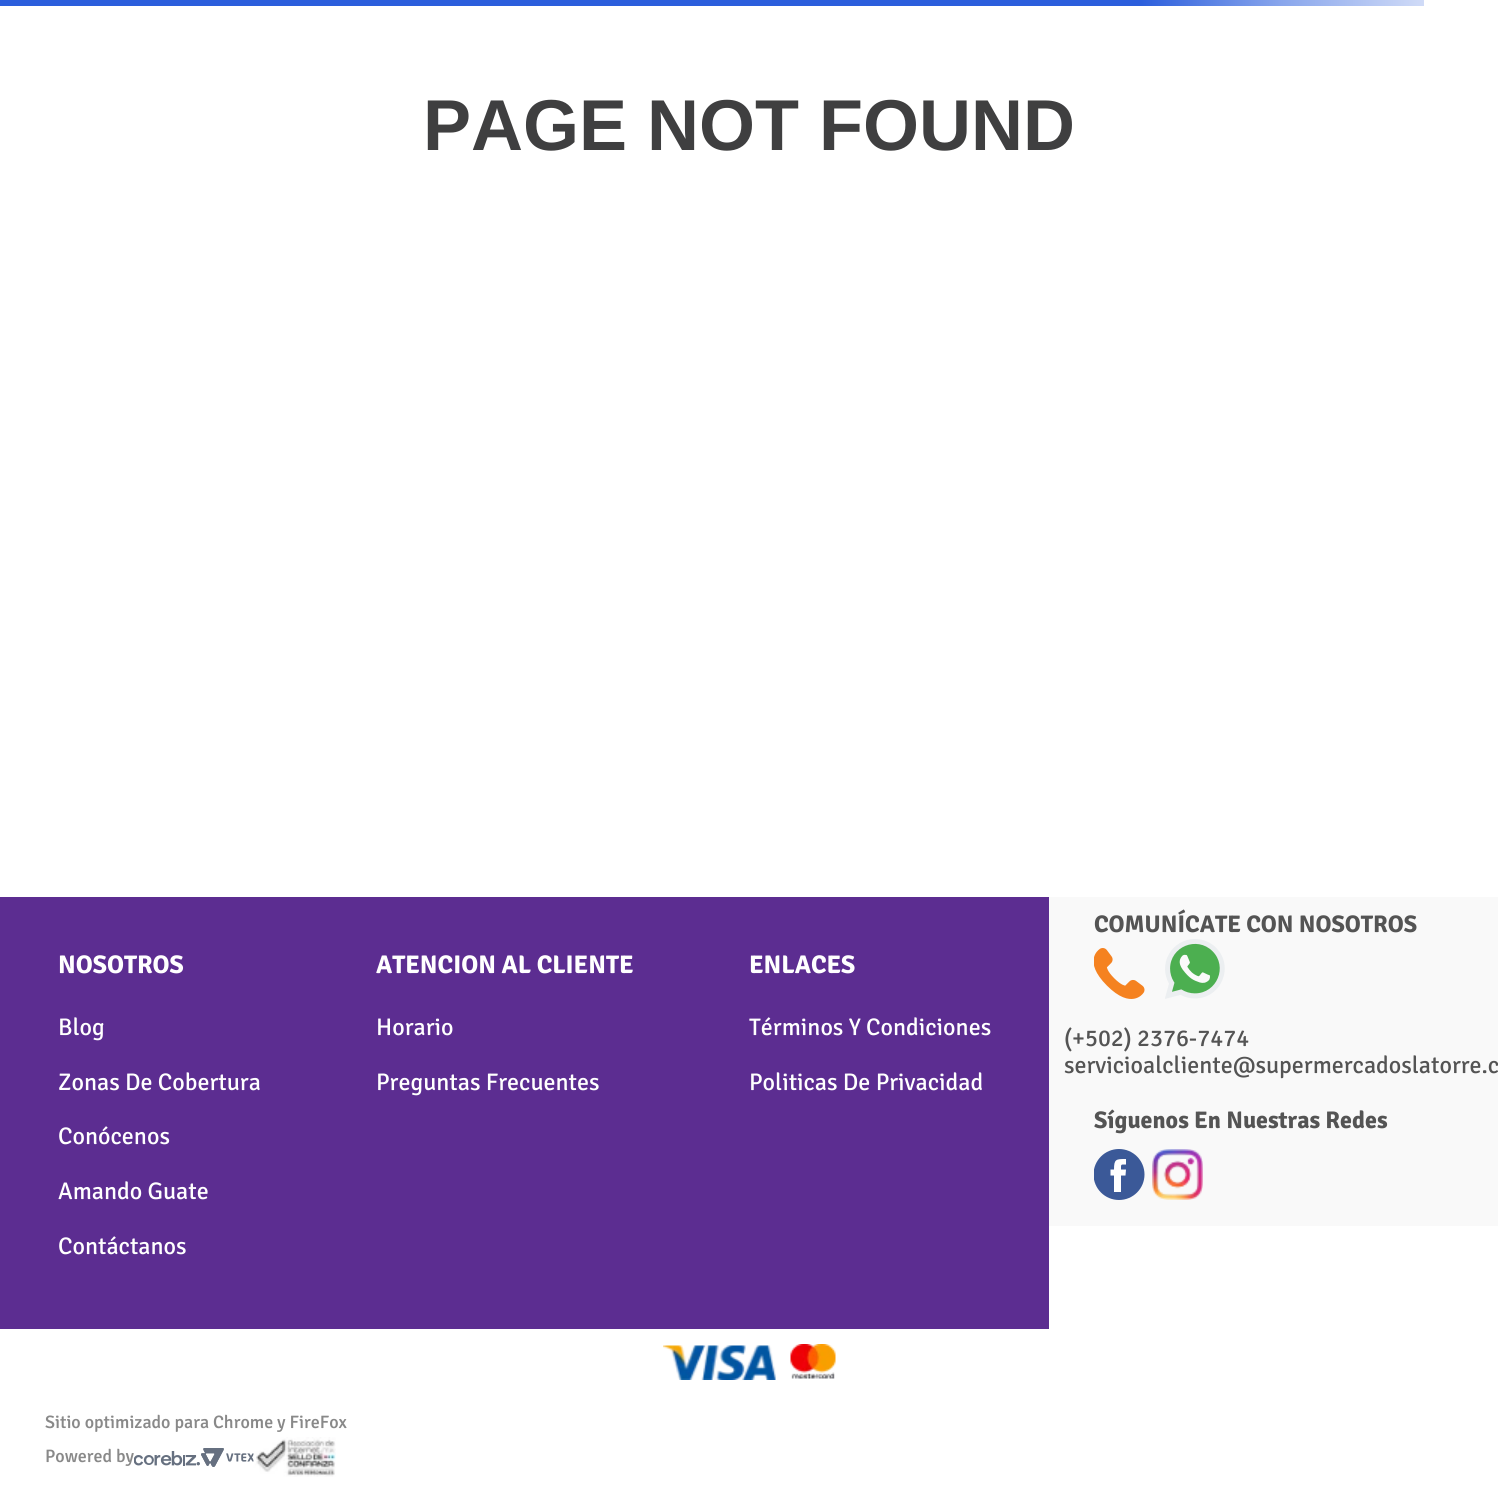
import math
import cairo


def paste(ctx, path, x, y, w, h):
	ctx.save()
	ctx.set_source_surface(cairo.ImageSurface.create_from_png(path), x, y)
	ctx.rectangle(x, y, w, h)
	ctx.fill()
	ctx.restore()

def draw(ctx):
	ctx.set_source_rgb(1, 1, 1)
	ctx.paint()
	gradient = cairo.LinearGradient(0, 3, 1424, 3)
	gradient.add_color_stop_rgba(0.8, 0.169, 0.369, 0.863, 1)
	gradient.add_color_stop_rgba(0.9, 0.537, 0.651, 0.925, 1)
	gradient.add_color_stop_rgba(1, 0.816, 0.859, 0.969, 1)
	ctx.set_source(gradient)
	ctx.rectangle(0, 0, 1424, 6)
	ctx.fill()
	ctx.select_font_face('Liberation Sans', cairo.FONT_SLANT_NORMAL, cairo.FONT_WEIGHT_BOLD)
	ctx.set_font_size(72)
	ctx.set_source_rgb(0.247, 0.247, 0.251)
	ctx.move_to(423, 150)
	ctx.show_text('PAGE NOT FOUND')
	ctx.set_source_rgb(0.361, 0.176, 0.569)
	ctx.rectangle(0, 897, 1049, 432)
	ctx.fill()
	ctx.select_font_face('Signika', cairo.FONT_SLANT_NORMAL, cairo.FONT_WEIGHT_BOLD)
	ctx.set_font_size(25.5)
	ctx.set_source_rgb(1, 1, 1)
	ctx.move_to(58, 973)
	ctx.show_text('NOSOTROS')
	ctx.select_font_face('Signika')
	ctx.set_font_size(24)
	for x, y, s in [
		(58, 1035, 'Blog'),
		(58, 1090, 'Zonas De Cobertura'),
		(58, 1144, 'Conócenos'),
		(58, 1199, 'Amando Guate'),
		(58, 1254, 'Contáctanos'),
	]:
		ctx.move_to(x, y)
		ctx.show_text(s)
	ctx.select_font_face('Signika', cairo.FONT_SLANT_NORMAL, cairo.FONT_WEIGHT_BOLD)
	ctx.set_font_size(25.5)
	ctx.move_to(376, 973)
	ctx.show_text('ATENCION AL CLIENTE')
	ctx.select_font_face('Signika')
	ctx.set_font_size(24)
	ctx.move_to(376, 1035)
	ctx.show_text('Horario')
	ctx.move_to(376, 1090)
	ctx.show_text('Preguntas Frecuentes')
	ctx.select_font_face('Signika', cairo.FONT_SLANT_NORMAL, cairo.FONT_WEIGHT_BOLD)
	ctx.set_font_size(25.5)
	ctx.move_to(749, 973)
	ctx.show_text('ENLACES')
	ctx.select_font_face('Signika')
	ctx.set_font_size(24)
	ctx.move_to(749, 1035)
	ctx.show_text('Términos Y Condiciones')
	ctx.move_to(749, 1090)
	ctx.show_text('Politicas De Privacidad')
	ctx.set_source_rgb(0.973, 0.973, 0.973)
	ctx.rectangle(1049, 897, 449, 329)
	ctx.fill()
	ctx.select_font_face('Signika', cairo.FONT_SLANT_NORMAL, cairo.FONT_WEIGHT_BOLD)
	ctx.set_source_rgb(0.329, 0.329, 0.329)
	ctx.move_to(1094, 932)
	ctx.show_text('COMUNÍCATE CON NOSOTROS')
	paste(ctx, 'media/1.png', 1094, 948, 51, 51)
	paste(ctx, 'media/2.png', 1165, 939, 60, 60)
	ctx.select_font_face('Signika')
	ctx.move_to(1064, 1046)
	ctx.show_text('(+502) 2376-7474')
	ctx.move_to(1064, 1073)
	ctx.show_text('servicioalcliente@supermercadoslatorre.c')
	ctx.select_font_face('Signika', cairo.FONT_SLANT_NORMAL, cairo.FONT_WEIGHT_BOLD)
	ctx.move_to(1094, 1128)
	ctx.show_text('Síguenos En Nuestras Redes')
	ctx.save()
	ctx.rectangle(1094, 1149, 51, 51)
	ctx.clip()
	ctx.set_source_rgb(0.231, 0.349, 0.596)
	ctx.arc(1119, 1174.5, 25.5, 0, 2 * math.pi)
	ctx.fill()
	ctx.restore()
	paste(ctx, 'media/3.png', 1152, 1149, 51, 51)
	ctx.set_source_rgb(1, 1, 1)
	ctx.new_path()
	ctx.move_to(1125.5, 1175.5)
	ctx.line_to(1121, 1175.5)
	ctx.line_to(1121, 1192)
	ctx.line_to(1114, 1192)
	ctx.line_to(1114, 1175.5)
	ctx.line_to(1110.5, 1175.5)
	ctx.line_to(1110.5, 1169.5)
	ctx.line_to(1114, 1169.5)
	ctx.curve_to(1114, 1159, 1116, 1159, 1126, 1159)
	ctx.line_to(1126, 1164.5)
	ctx.curve_to(1120.5, 1164.5, 1121, 1164, 1121, 1169.5)
	ctx.line_to(1126, 1169.5)
	ctx.close_path()
	ctx.fill()
	paste(ctx, 'media/4.png', 663, 1345, 113, 35)
	paste(ctx, 'media/5.png', 790, 1344, 46, 35)
	ctx.select_font_face('Signika Medium')
	ctx.set_font_size(18)
	ctx.set_source_rgb(0.537, 0.537, 0.537)
	ctx.move_to(45, 1428)
	ctx.show_text('Sitio optimizado para Chrome y FireFox')
	ctx.move_to(45, 1462)
	ctx.show_text('Powered by')
	paste(ctx, 'media/6.png', 134, 1451, 66, 15)
	paste(ctx, 'media/7.png', 201, 1448, 53, 19)
	paste(ctx, 'media/8.png', 253, 1437, 83, 40)


surface = cairo.ImageSurface(cairo.FORMAT_RGB24, 1498, 1492)
ctx = cairo.Context(surface)
options = cairo.FontOptions()
options.set_hint_metrics(cairo.HINT_METRICS_OFF)
options.set_hint_style(cairo.HINT_STYLE_NONE)
ctx.set_font_options(options)
ctx.set_miter_limit(4)
draw(ctx)
surface.write_to_png('image.png')
